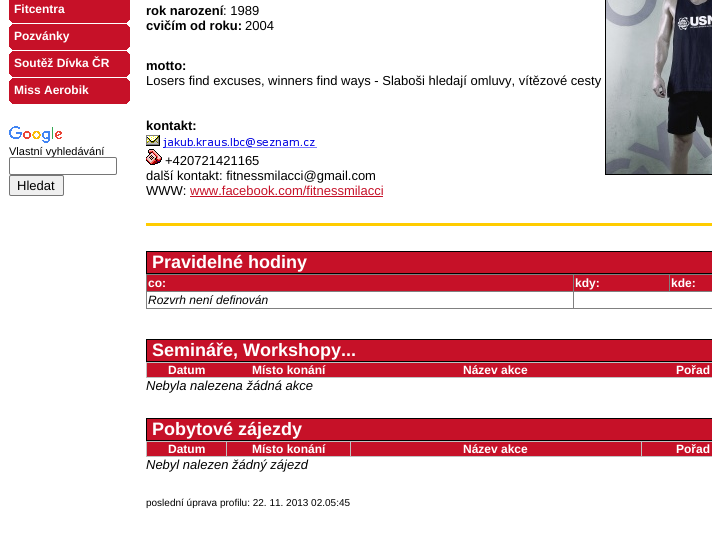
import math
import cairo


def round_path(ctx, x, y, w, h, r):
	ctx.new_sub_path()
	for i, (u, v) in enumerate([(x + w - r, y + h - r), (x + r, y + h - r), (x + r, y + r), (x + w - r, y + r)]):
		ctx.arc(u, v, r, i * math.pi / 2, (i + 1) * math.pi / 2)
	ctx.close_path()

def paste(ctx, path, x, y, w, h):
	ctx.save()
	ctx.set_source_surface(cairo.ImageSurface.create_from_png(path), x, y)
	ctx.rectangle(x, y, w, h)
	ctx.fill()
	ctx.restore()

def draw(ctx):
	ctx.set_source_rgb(1, 1, 1)
	ctx.paint()
	paste(ctx, 'media/1.png', 9, 0, 121, 23)
	ctx.select_font_face('Liberation Sans', cairo.FONT_SLANT_NORMAL, cairo.FONT_WEIGHT_BOLD)
	ctx.set_font_size(12)
	ctx.set_source_rgb(1, 1, 1)
	ctx.move_to(14, 13)
	ctx.show_text('Fitcentra')
	paste(ctx, 'media/2.png', 9, 24, 121, 26)
	ctx.move_to(14, 40)
	ctx.show_text('Pozvánky')
	paste(ctx, 'media/2.png', 9, 51, 121, 26)
	ctx.move_to(14, 67)
	ctx.show_text('Soutěž Dívka ČR')
	paste(ctx, 'media/2.png', 9, 78, 121, 26)
	ctx.move_to(14, 94)
	ctx.show_text('Miss Aerobik')
	paste(ctx, 'media/3.png', 9, 126, 53, 17)
	ctx.select_font_face('Liberation Sans')
	ctx.set_font_size(11)
	ctx.set_source_rgb(0, 0, 0)
	ctx.move_to(9, 155)
	ctx.show_text('Vlastní vyhledávání')
	ctx.set_source_rgb(1, 1, 1)
	round_path(ctx, 9.5, 157.5, 107, 17, 1.5)
	ctx.fill_preserve()
	ctx.set_source_rgb(0.463, 0.463, 0.463)
	ctx.set_line_width(1)
	ctx.stroke()
	ctx.set_source_rgb(0.937, 0.937, 0.937)
	round_path(ctx, 9.5, 175.5, 54, 20, 1.5)
	ctx.fill_preserve()
	ctx.set_source_rgb(0.463, 0.463, 0.463)
	ctx.stroke()
	ctx.set_font_size(13)
	ctx.set_source_rgb(0, 0, 0)
	ctx.move_to(17, 190)
	ctx.show_text('Hledat')
	ctx.select_font_face('Liberation Sans', cairo.FONT_SLANT_NORMAL, cairo.FONT_WEIGHT_BOLD)
	ctx.move_to(146, 15)
	ctx.show_text('rok narození')
	ctx.select_font_face('Liberation Sans')
	ctx.move_to(223, 15)
	ctx.show_text(': 1989')
	ctx.select_font_face('Liberation Sans', cairo.FONT_SLANT_NORMAL, cairo.FONT_WEIGHT_BOLD)
	ctx.move_to(146, 30)
	ctx.show_text('cvičím od roku:')
	ctx.select_font_face('Liberation Sans')
	ctx.move_to(245, 30)
	ctx.show_text('2004')
	ctx.rectangle(605.5, -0.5, 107, 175)
	ctx.stroke()
	paste(ctx, 'media/4.png', 606, 0, 106, 174)
	ctx.select_font_face('Liberation Sans', cairo.FONT_SLANT_NORMAL, cairo.FONT_WEIGHT_BOLD)
	ctx.move_to(146, 70)
	ctx.show_text('motto:')
	ctx.select_font_face('Liberation Sans')
	ctx.move_to(146, 85)
	ctx.show_text('Losers find excuses, winners find ways - Slaboši hledají omluvy, vítězové cesty')
	ctx.select_font_face('Liberation Sans', cairo.FONT_SLANT_NORMAL, cairo.FONT_WEIGHT_BOLD)
	ctx.move_to(146, 130)
	ctx.show_text('kontakt:')
	paste(ctx, 'media/5.png', 146, 135, 14, 11)
	paste(ctx, 'media/6.png', 163, 138, 154, 10)
	paste(ctx, 'media/7.png', 146, 149, 16, 16)
	ctx.select_font_face('Liberation Sans')
	for x, y, s in [
		(165, 165, '+420721421165'),
		(146, 180, 'další kontakt: fitnessmilacci@gmail.com'),
		(146, 195, 'WWW:'),
	]:
		ctx.move_to(x, y)
		ctx.show_text(s)
	ctx.set_source_rgb(0.776, 0.067, 0.157)
	ctx.move_to(190, 195)
	ctx.show_text('www.facebook.com/fitnessmilacci')
	ctx.rectangle(190, 196, 193, 1)
	ctx.fill()
	ctx.set_source_rgb(1, 0.8, 0)
	ctx.rectangle(146, 223, 566, 3)
	ctx.fill()
	ctx.set_source_rgb(0, 0, 0)
	ctx.rectangle(146, 251, 566, 1)
	ctx.rectangle(146, 273, 566, 1)
	ctx.rectangle(146, 251, 1, 23)
	ctx.fill()
	ctx.set_source_rgb(0.776, 0.067, 0.157)
	ctx.rectangle(147, 252, 565, 21)
	ctx.fill()
	ctx.select_font_face('Liberation Sans', cairo.FONT_SLANT_NORMAL, cairo.FONT_WEIGHT_BOLD)
	ctx.set_font_size(18)
	ctx.set_source_rgb(1, 1, 1)
	ctx.move_to(152, 268)
	ctx.show_text('Pravidelné hodiny')
	ctx.set_source_rgb(0.502, 0.502, 0.502)
	ctx.rectangle(146, 274, 566, 1)
	ctx.rectangle(146, 308, 566, 1)
	ctx.rectangle(146, 274, 1, 35)
	ctx.fill()
	ctx.set_source_rgb(0.776, 0.067, 0.157)
	ctx.rectangle(147, 275, 426, 16)
	ctx.fill()
	ctx.set_font_size(12)
	ctx.set_source_rgb(1, 1, 1)
	ctx.move_to(148, 287)
	ctx.show_text('co:')
	ctx.set_source_rgb(0.776, 0.067, 0.157)
	ctx.rectangle(574, 275, 95, 16)
	ctx.fill()
	ctx.set_source_rgb(0.502, 0.502, 0.502)
	ctx.rectangle(669, 291, 43, 1)
	ctx.rectangle(669, 274, 1, 18)
	ctx.rectangle(146, 291, 428, 1)
	ctx.rectangle(573, 291, 1, 18)
	ctx.rectangle(573, 291, 97, 1)
	ctx.rectangle(573, 274, 1, 18)
	ctx.fill()
	ctx.set_source_rgb(1, 1, 1)
	ctx.move_to(575, 287)
	ctx.show_text('kdy:')
	ctx.set_source_rgb(0.776, 0.067, 0.157)
	ctx.rectangle(670, 275, 42, 16)
	ctx.fill()
	ctx.set_source_rgb(1, 1, 1)
	ctx.move_to(671, 287)
	ctx.show_text('kde:')
	ctx.select_font_face('Liberation Sans', cairo.FONT_SLANT_ITALIC)
	ctx.set_source_rgb(0, 0, 0)
	ctx.move_to(148, 304)
	ctx.show_text('Rozvrh není definován')
	ctx.rectangle(146, 339, 566, 1)
	ctx.rectangle(146, 361, 566, 1)
	ctx.rectangle(146, 339, 1, 23)
	ctx.fill()
	ctx.set_source_rgb(0.776, 0.067, 0.157)
	ctx.rectangle(147, 340, 565, 21)
	ctx.fill()
	ctx.select_font_face('Liberation Sans', cairo.FONT_SLANT_NORMAL, cairo.FONT_WEIGHT_BOLD)
	ctx.set_font_size(18)
	ctx.set_source_rgb(1, 1, 1)
	ctx.move_to(152, 356)
	ctx.show_text('Semináře, Workshopy...')
	ctx.set_source_rgb(0.753, 0.753, 0.753)
	ctx.rectangle(146, 362, 566, 1)
	ctx.rectangle(146, 377, 566, 1)
	ctx.rectangle(146, 362, 1, 16)
	ctx.fill()
	ctx.set_source_rgb(0.776, 0.067, 0.157)
	ctx.rectangle(147, 363, 565, 14)
	ctx.fill()
	ctx.set_font_size(12)
	ctx.set_source_rgb(1, 1, 1)
	for x, y, s in [
		(168, 374, 'Datum'),
		(252, 374, 'Místo konání'),
		(463, 374, 'Název akce'),
		(676, 374, 'Pořad'),
	]:
		ctx.move_to(x, y)
		ctx.show_text(s)
	ctx.select_font_face('Liberation Sans', cairo.FONT_SLANT_ITALIC)
	ctx.set_font_size(13)
	ctx.set_source_rgb(0, 0, 0)
	ctx.move_to(146, 390)
	ctx.show_text('Nebyla nalezena žádná akce')
	ctx.rectangle(146, 418, 566, 1)
	ctx.rectangle(146, 440, 566, 1)
	ctx.rectangle(146, 418, 1, 23)
	ctx.fill()
	ctx.set_source_rgb(0.776, 0.067, 0.157)
	ctx.rectangle(147, 419, 565, 21)
	ctx.fill()
	ctx.select_font_face('Liberation Sans', cairo.FONT_SLANT_NORMAL, cairo.FONT_WEIGHT_BOLD)
	ctx.set_font_size(18)
	ctx.set_source_rgb(1, 1, 1)
	ctx.move_to(152, 435)
	ctx.show_text('Pobytové zájezdy')
	ctx.set_source_rgb(0.753, 0.753, 0.753)
	ctx.rectangle(146, 441, 566, 1)
	ctx.rectangle(146, 456, 566, 1)
	ctx.rectangle(146, 441, 1, 16)
	ctx.fill()
	ctx.set_source_rgb(0.776, 0.067, 0.157)
	ctx.rectangle(147, 442, 79, 14)
	ctx.fill()
	ctx.set_font_size(12)
	ctx.set_source_rgb(1, 1, 1)
	ctx.move_to(168, 453)
	ctx.show_text('Datum')
	ctx.set_source_rgb(0.776, 0.067, 0.157)
	ctx.rectangle(227, 442, 123, 14)
	ctx.fill()
	ctx.set_source_rgb(0.753, 0.753, 0.753)
	ctx.rectangle(226, 441, 1, 16)
	ctx.fill()
	ctx.set_source_rgb(1, 1, 1)
	ctx.move_to(252, 453)
	ctx.show_text('Místo konání')
	ctx.set_source_rgb(0.776, 0.067, 0.157)
	ctx.rectangle(351, 442, 290, 14)
	ctx.fill()
	ctx.set_source_rgb(0.753, 0.753, 0.753)
	ctx.rectangle(350, 441, 1, 16)
	ctx.fill()
	ctx.set_source_rgb(1, 1, 1)
	ctx.move_to(463, 453)
	ctx.show_text('Název akce')
	ctx.set_source_rgb(0.776, 0.067, 0.157)
	ctx.rectangle(642, 442, 70, 14)
	ctx.fill()
	ctx.set_source_rgb(0.753, 0.753, 0.753)
	ctx.rectangle(641, 441, 1, 16)
	ctx.fill()
	ctx.set_source_rgb(1, 1, 1)
	ctx.move_to(676, 453)
	ctx.show_text('Pořad')
	ctx.select_font_face('Liberation Sans', cairo.FONT_SLANT_ITALIC)
	ctx.set_font_size(13)
	ctx.set_source_rgb(0, 0, 0)
	ctx.move_to(146, 469)
	ctx.show_text('Nebyl nalezen žádný zájezd')
	ctx.select_font_face('Liberation Sans')
	ctx.set_font_size(10)
	ctx.move_to(146, 506)
	ctx.show_text('poslední úprava profilu: 22. 11. 2013 02.05:45')


surface = cairo.ImageSurface(cairo.FORMAT_RGB24, 712, 542)
ctx = cairo.Context(surface)
options = cairo.FontOptions()
options.set_hint_metrics(cairo.HINT_METRICS_OFF)
options.set_hint_style(cairo.HINT_STYLE_NONE)
ctx.set_font_options(options)
ctx.set_miter_limit(4)
draw(ctx)
surface.write_to_png('image.png')
